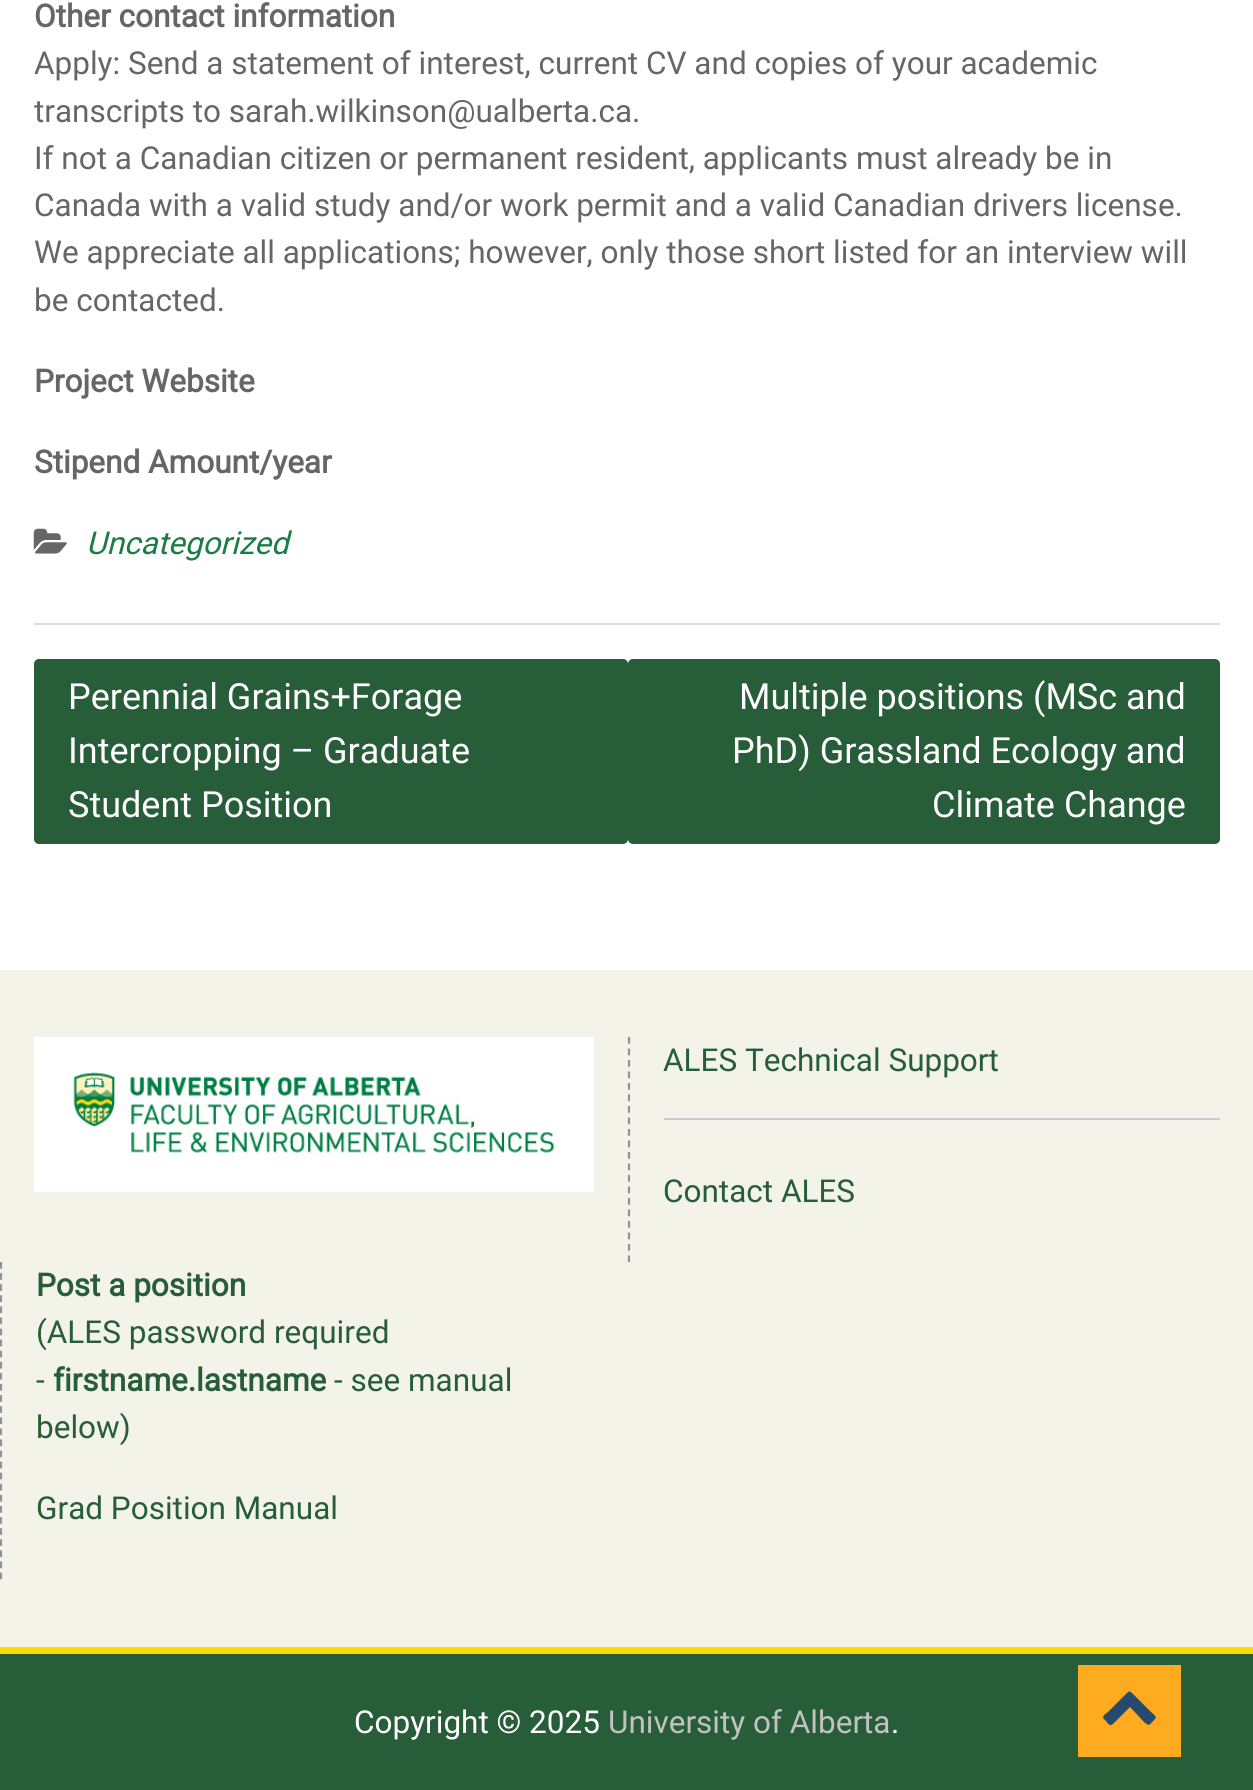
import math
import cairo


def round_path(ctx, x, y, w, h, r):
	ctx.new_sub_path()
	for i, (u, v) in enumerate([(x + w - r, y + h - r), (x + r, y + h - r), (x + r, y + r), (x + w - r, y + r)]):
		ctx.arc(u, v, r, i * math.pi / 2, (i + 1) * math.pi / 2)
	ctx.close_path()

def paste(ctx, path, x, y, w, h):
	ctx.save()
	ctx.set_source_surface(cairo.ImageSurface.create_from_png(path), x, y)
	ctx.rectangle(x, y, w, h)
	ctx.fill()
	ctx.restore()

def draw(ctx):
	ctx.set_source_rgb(1, 1, 1)
	ctx.paint()
	ctx.set_source_rgb(0.867, 0.867, 0.867)
	ctx.rectangle(34, 623, 1186, 2)
	ctx.fill()
	ctx.select_font_face('Roboto', cairo.FONT_SLANT_NORMAL, cairo.FONT_WEIGHT_BOLD)
	ctx.set_font_size(31.5)
	ctx.set_source_rgb(0.4, 0.4, 0.4)
	ctx.move_to(34, 27)
	ctx.show_text('Other contact information')
	ctx.select_font_face('Roboto')
	for x, y, s in [
		(34, 74, 'Apply: Send a statement of interest, current CV and copies of your academic'),
		(34, 122, 'transcripts to sarah.wilkinson@ualberta.ca.'),
		(34, 169, 'If not a Canadian citizen or permanent resident, applicants must already be in'),
		(34, 216, 'Canada with a valid study and/or work permit and a valid Canadian drivers license.'),
		(34, 263, 'We appreciate all applications; however, only those short listed for an interview will'),
		(34, 311, 'be contacted.'),
	]:
		ctx.move_to(x, y)
		ctx.show_text(s)
	ctx.select_font_face('Roboto', cairo.FONT_SLANT_NORMAL, cairo.FONT_WEIGHT_BOLD)
	ctx.move_to(34, 392)
	ctx.show_text('Project Website')
	ctx.move_to(34, 473)
	ctx.show_text('Stipend Amount/year')
	paste(ctx, 'media/1.png', 33, 528, 34, 26)
	ctx.select_font_face('Roboto', cairo.FONT_SLANT_ITALIC)
	ctx.set_source_rgb(0.106, 0.486, 0.267)
	ctx.move_to(86, 554)
	ctx.show_text('Uncategorized')
	ctx.set_source_rgb(0.153, 0.365, 0.22)
	round_path(ctx, 34, 659, 594, 185, 5)
	ctx.fill()
	ctx.select_font_face('Roboto')
	ctx.set_font_size(36)
	ctx.set_source_rgb(1, 1, 1)
	for x, y, s in [
		(68, 709, 'Perennial Grains+Forage'),
		(68, 763, 'Intercropping – Graduate'),
		(68, 817, 'Student Position'),
	]:
		ctx.move_to(x, y)
		ctx.show_text(s)
	ctx.set_source_rgb(0.153, 0.365, 0.22)
	round_path(ctx, 628, 659, 592, 185, 5)
	ctx.fill()
	ctx.set_source_rgb(1, 1, 1)
	for x, y, s in [
		(739, 709, 'Multiple positions (MSc and'),
		(732, 763, 'PhD) Grassland Ecology and'),
		(932, 817, 'Climate Change'),
	]:
		ctx.move_to(x, y)
		ctx.show_text(s)
	ctx.set_source_rgb(0.953, 0.953, 0.914)
	ctx.rectangle(0, 970, 1253, 677)
	ctx.fill()
	paste(ctx, 'media/2.png', 33, 1037, 561, 156)
	ctx.new_path()
	ctx.move_to(629, 1037)
	ctx.line_to(629, 1262)
	ctx.set_source_rgb(0.576, 0.576, 0.576)
	ctx.set_line_width(2.2)
	ctx.set_dash([6.75, 4.75])
	ctx.stroke()
	ctx.set_font_size(31.5)
	ctx.set_source_rgb(0.153, 0.365, 0.22)
	ctx.move_to(663, 1071)
	ctx.show_text('ALES Technical Support')
	ctx.set_source_rgb(0.8, 0.8, 0.8)
	ctx.rectangle(664, 1118, 556, 2)
	ctx.fill()
	ctx.set_source_rgb(0.153, 0.365, 0.22)
	ctx.move_to(663, 1202)
	ctx.show_text('Contact ALES')
	ctx.new_path()
	ctx.move_to(1, 1262)
	ctx.line_to(1, 1579.5)
	ctx.set_source_rgb(0.576, 0.576, 0.576)
	ctx.set_dash([6.75, 4.34])
	ctx.stroke()
	ctx.select_font_face('Roboto', cairo.FONT_SLANT_NORMAL, cairo.FONT_WEIGHT_BOLD)
	ctx.set_source_rgb(0.153, 0.365, 0.22)
	ctx.move_to(36, 1296)
	ctx.show_text('Post a position')
	ctx.select_font_face('Roboto')
	ctx.move_to(36, 1343)
	ctx.show_text('(ALES password required')
	ctx.move_to(36, 1391)
	ctx.show_text('-')
	ctx.select_font_face('Roboto', cairo.FONT_SLANT_NORMAL, cairo.FONT_WEIGHT_BOLD)
	ctx.move_to(53, 1391)
	ctx.show_text('firstname.lastname')
	ctx.select_font_face('Roboto')
	for x, y, s in [
		(334, 1391, '- see manual'),
		(36, 1438, 'below)'),
		(36, 1519, 'Grad Position Manual'),
	]:
		ctx.move_to(x, y)
		ctx.show_text(s)
	ctx.rectangle(0, 1654, 1253, 136)
	ctx.fill()
	ctx.set_source_rgb(1, 0.859, 0.02)
	ctx.rectangle(0, 1647, 1253, 7)
	ctx.fill()
	ctx.set_source_rgb(1, 1, 1)
	ctx.move_to(354, 1733)
	ctx.show_text('Copyright © 2025')
	ctx.set_source_rgb(0.761, 0.761, 0.761)
	ctx.move_to(608, 1733)
	ctx.show_text('University of Alberta')
	ctx.set_source_rgb(1, 1, 1)
	ctx.move_to(891, 1733)
	ctx.show_text('.')
	ctx.set_source_rgb(1, 0.671, 0.122)
	ctx.rectangle(1078, 1665, 103, 92)
	ctx.fill()
	ctx.set_source_rgb(0.161, 0.29, 0.439)
	ctx.new_path()
	ctx.move_to(1155, 1719)
	ctx.curve_to(1149, 1725, 1150, 1727, 1144, 1722)
	ctx.line_to(1130, 1707)
	ctx.line_to(1115, 1722)
	ctx.curve_to(1110, 1727, 1110, 1726, 1105, 1720)
	ctx.curve_to(1101, 1717, 1104, 1715, 1108, 1712)
	ctx.line_to(1124, 1696)
	ctx.curve_to(1130, 1690, 1129, 1690, 1135, 1696)
	ctx.line_to(1151, 1712)
	ctx.curve_to(1152, 1713, 1158, 1717, 1155, 1719)
	ctx.close_path()
	ctx.fill()


surface = cairo.ImageSurface(cairo.FORMAT_RGB24, 1253, 1790)
ctx = cairo.Context(surface)
options = cairo.FontOptions()
options.set_hint_metrics(cairo.HINT_METRICS_OFF)
options.set_hint_style(cairo.HINT_STYLE_NONE)
ctx.set_font_options(options)
ctx.set_miter_limit(4)
draw(ctx)
surface.write_to_png('image.png')
